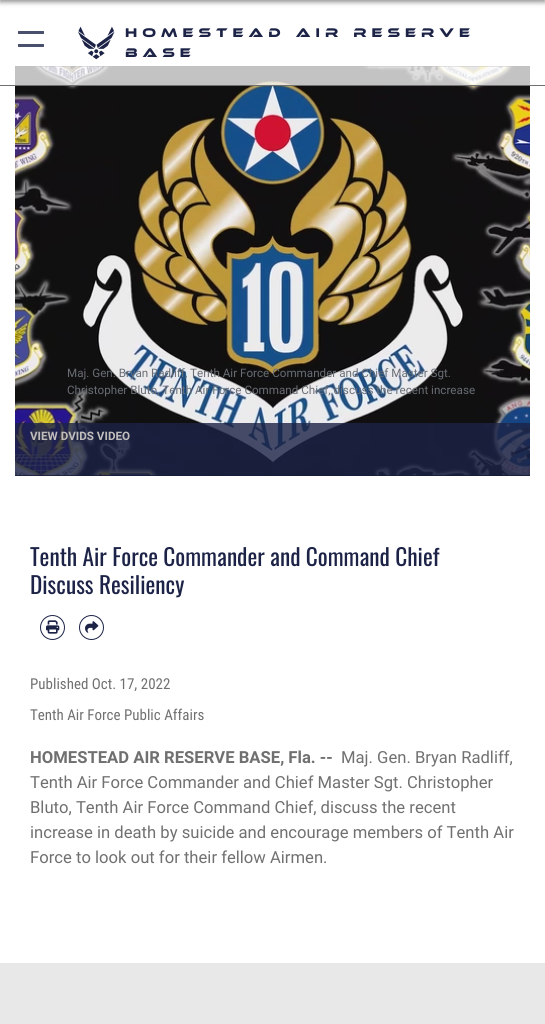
import math
import cairo


def write_spaced(ctx, x, y, s, letter, word):
	ctx.move_to(x, y)
	for ch in s:
		ctx.show_text(ch)
		ctx.rel_move_to(letter + word * (ch == ' '), 0)

def round_path(ctx, x, y, w, h, r):
	ctx.new_sub_path()
	for i, (u, v) in enumerate([(x + w - r, y + h - r), (x + r, y + h - r), (x + r, y + r), (x + w - r, y + r)]):
		ctx.arc(u, v, r, i * math.pi / 2, (i + 1) * math.pi / 2)
	ctx.close_path()

def blur_box(ctx, x, y, w, h, r, blur, alpha):
	ctx.push_group_with_content(cairo.CONTENT_ALPHA)
	ctx.set_operator(cairo.OPERATOR_SOURCE)
	for i in range(15, -16, -2):
		e = blur * i / 6
		if min(w, h) + 2 * e > 0:
			ctx.set_source_rgba(0, 0, 0, alpha * math.erfc((i - 1) / 8.5) / 2)
			round_path(ctx, x - e, y - e, w + 2 * e, h + 2 * e, max(0, min(r + e + blur * .6, min(w, h) / 2 + e)))
			ctx.fill()
	ctx.mask(ctx.pop_group())

def paste(ctx, path, x, y, w, h):
	ctx.save()
	ctx.set_source_surface(cairo.ImageSurface.create_from_png(path), x, y)
	ctx.rectangle(x, y, w, h)
	ctx.fill()
	ctx.restore()

def draw(ctx):
	ctx.set_source_rgb(1, 1, 1)
	ctx.paint()
	ctx.set_source_rgb(0.102, 0.102, 0.102)
	blur_box(ctx, 0, -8, 545, 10, 0, 2.5, 0.5)
	ctx.set_source_rgb(0, 0, 0)
	ctx.rectangle(15, 66, 515, 410)
	ctx.fill()
	paste(ctx, 'media/2.png', 15, 66, 515, 410)
	ctx.set_source_rgba(1, 1, 1, 0.75)
	ctx.rectangle(15, 66, 515, 19)
	ctx.fill()
	ctx.set_source_rgb(0.439, 0.439, 0.439)
	ctx.rectangle(0, 85, 545, 1)
	ctx.fill()
	ctx.set_source_rgb(0.286, 0.314, 0.427)
	round_path(ctx, 18, 31, 26, 3, 0.5)
	ctx.fill()
	round_path(ctx, 18, 44, 26, 3, 0.5)
	ctx.fill()
	paste(ctx, 'media/1.png', 78, 26, 37, 34)
	ctx.select_font_face('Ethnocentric')
	ctx.set_font_size(13)
	ctx.set_source_rgb(0.11, 0.137, 0.278)
	write_spaced(ctx, 125, 37, 'Homestead Air Reserve', 5, 0)
	write_spaced(ctx, 125, 57, 'Base', 5, 0)
	ctx.select_font_face('Roboto')
	ctx.set_font_size(11.65)
	ctx.set_source_rgb(0.408, 0.427, 0.459)
	ctx.move_to(67, 377)
	ctx.show_text('Maj. Gen. Bryan Radliff, Tenth Air Force Commander and Chief Master Sgt.')
	ctx.move_to(67, 394)
	ctx.show_text('Christopher Bluto, Tenth Air Force Command Chief, discuss the recent increase')
	ctx.set_source_rgba(0.11, 0.137, 0.278, 0.8)
	ctx.rectangle(15, 423, 515, 53)
	ctx.fill()
	ctx.select_font_face('Roboto', cairo.FONT_SLANT_NORMAL, cairo.FONT_WEIGHT_BOLD)
	ctx.set_source_rgb(0.757, 0.741, 0.741)
	ctx.move_to(30, 440)
	ctx.show_text('VIEW DVIDS VIDEO')
	ctx.select_font_face('Oswald')
	ctx.set_font_size(23.3)
	ctx.set_source_rgb(0.11, 0.137, 0.278)
	ctx.move_to(30, 566)
	ctx.show_text('Tenth Air Force Commander and Command Chief')
	ctx.move_to(30, 594)
	ctx.show_text('Discuss Resiliency')
	ctx.new_path()
	ctx.arc(52.5, 627.5, 12, 0, 2 * math.pi)
	ctx.set_line_width(1)
	ctx.stroke()
	paste(ctx, 'media/3.png', 46, 620, 14, 14)
	ctx.arc(91.5, 627.5, 12, 0, 2 * math.pi)
	ctx.stroke()
	paste(ctx, 'media/4.png', 85, 621, 14, 12)
	ctx.select_font_face('Roboto Condensed')
	ctx.set_font_size(15)
	ctx.set_source_rgb(0.439, 0.439, 0.439)
	ctx.move_to(30, 689)
	ctx.show_text('Published Oct. 17, 2022')
	ctx.move_to(30, 720)
	ctx.show_text('Tenth Air Force Public Affairs')
	ctx.select_font_face('Roboto')
	ctx.set_font_size(16.65)
	for x, y, s in [
		(341, 763, 'Maj. Gen. Bryan Radliff,'),
		(30, 788, 'Tenth Air Force Commander and Chief Master Sgt. Christopher'),
		(30, 813, 'Bluto, Tenth Air Force Command Chief, discuss the recent'),
		(30, 838, 'increase in death by suicide and encourage members of Tenth Air'),
		(30, 863, 'Force to look out for their fellow Airmen.'),
	]:
		ctx.move_to(x, y)
		ctx.show_text(s)
	ctx.select_font_face('Roboto', cairo.FONT_SLANT_NORMAL, cairo.FONT_WEIGHT_BOLD)
	ctx.move_to(30, 763)
	ctx.show_text('HOMESTEAD AIR RESERVE BASE, Fla. --')
	ctx.set_source_rgb(0.91, 0.91, 0.91)
	ctx.rectangle(0, 963, 545, 61)
	ctx.fill()


surface = cairo.ImageSurface(cairo.FORMAT_RGB24, 545, 1024)
ctx = cairo.Context(surface)
options = cairo.FontOptions()
options.set_hint_metrics(cairo.HINT_METRICS_OFF)
options.set_hint_style(cairo.HINT_STYLE_NONE)
ctx.set_font_options(options)
ctx.set_miter_limit(4)
draw(ctx)
surface.write_to_png('image.png')
